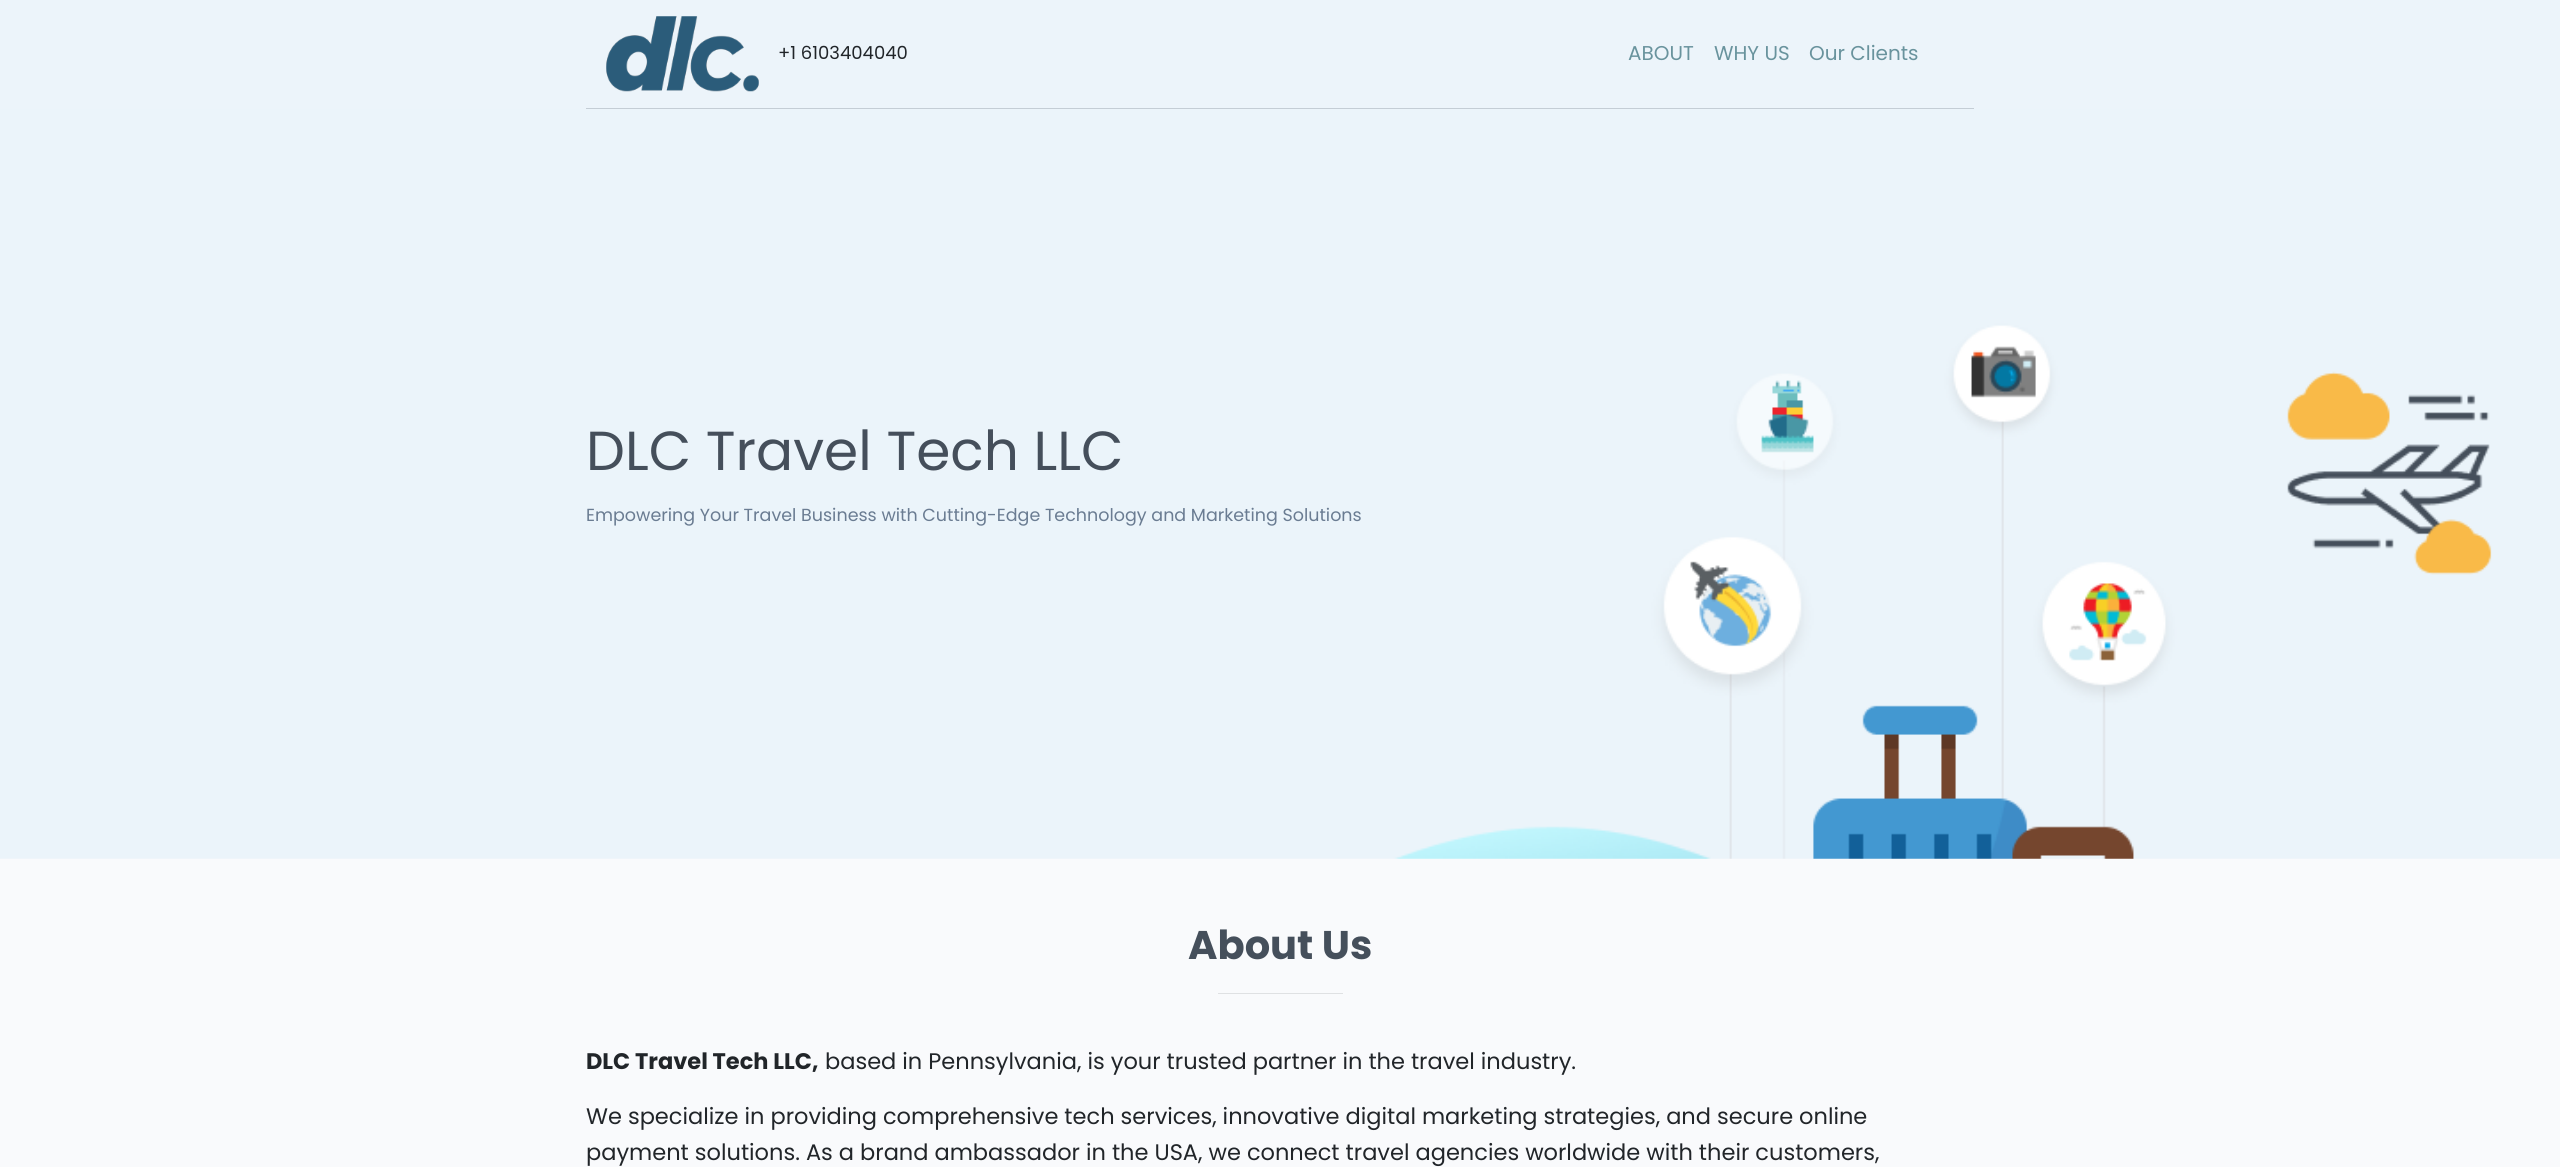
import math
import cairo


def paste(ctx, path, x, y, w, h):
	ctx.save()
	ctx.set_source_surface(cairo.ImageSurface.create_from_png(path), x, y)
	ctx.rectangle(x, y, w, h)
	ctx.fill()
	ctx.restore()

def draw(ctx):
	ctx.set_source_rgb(0.973, 0.98, 0.988)
	ctx.paint()
	ctx.set_source_rgb(0.922, 0.957, 0.98)
	ctx.rectangle(0, 0, 2560, 109)
	ctx.fill()
	ctx.set_source_rgb(0.769, 0.804, 0.835)
	ctx.rectangle(586, 108, 1388, 1)
	ctx.fill()
	paste(ctx, 'media/1.png', 606, 16, 153, 76)
	ctx.select_font_face('Poppins')
	ctx.set_font_size(18)
	ctx.set_source_rgb(0.129, 0.145, 0.161)
	ctx.move_to(778, 59)
	ctx.show_text('+1 6103404040')
	ctx.set_font_size(20)
	ctx.set_source_rgb(0.412, 0.576, 0.616)
	for x, y, s in [
		(1628, 60, 'ABOUT'),
		(1714, 60, 'WHY US'),
		(1809, 60, 'Our Clients'),
	]:
		ctx.move_to(x, y)
		ctx.show_text(s)
	paste(ctx, 'media/2.png', 0, 109, 2560, 750)
	ctx.set_font_size(55)
	ctx.set_source_rgb(0.271, 0.31, 0.357)
	ctx.move_to(586, 470)
	ctx.show_text('DLC Travel Tech LLC')
	ctx.set_font_size(17.5)
	ctx.set_source_rgb(0.416, 0.486, 0.573)
	ctx.move_to(586, 521)
	ctx.show_text('Empowering Your Travel Business with Cutting-Edge Technology and Marketing Solutions')
	ctx.select_font_face('Poppins', cairo.FONT_SLANT_NORMAL, cairo.FONT_WEIGHT_BOLD)
	ctx.set_font_size(40)
	ctx.set_source_rgb(0.271, 0.31, 0.357)
	ctx.move_to(1188, 959)
	ctx.show_text('About Us')
	ctx.set_source_rgb(0.875, 0.882, 0.89)
	ctx.rectangle(1218, 993, 125, 1)
	ctx.fill()
	ctx.set_font_size(22.5)
	ctx.set_source_rgb(0.129, 0.145, 0.161)
	ctx.move_to(586, 1069)
	ctx.show_text('DLC Travel Tech LLC,')
	ctx.select_font_face('Poppins')
	for x, y, s in [
		(825, 1069, 'based in Pennsylvania, is your trusted partner in the travel industry.'),
		(586, 1124, 'We specialize in providing comprehensive tech services, innovative digital marketing strategies, and secure online'),
		(586, 1160, 'payment solutions. As a brand ambassador in the USA, we connect travel agencies worldwide with their customers,'),
	]:
		ctx.move_to(x, y)
		ctx.show_text(s)


surface = cairo.ImageSurface(cairo.FORMAT_RGB24, 2560, 1167)
ctx = cairo.Context(surface)
options = cairo.FontOptions()
options.set_hint_metrics(cairo.HINT_METRICS_OFF)
options.set_hint_style(cairo.HINT_STYLE_NONE)
ctx.set_font_options(options)
ctx.set_miter_limit(4)
draw(ctx)
surface.write_to_png('image.png')
